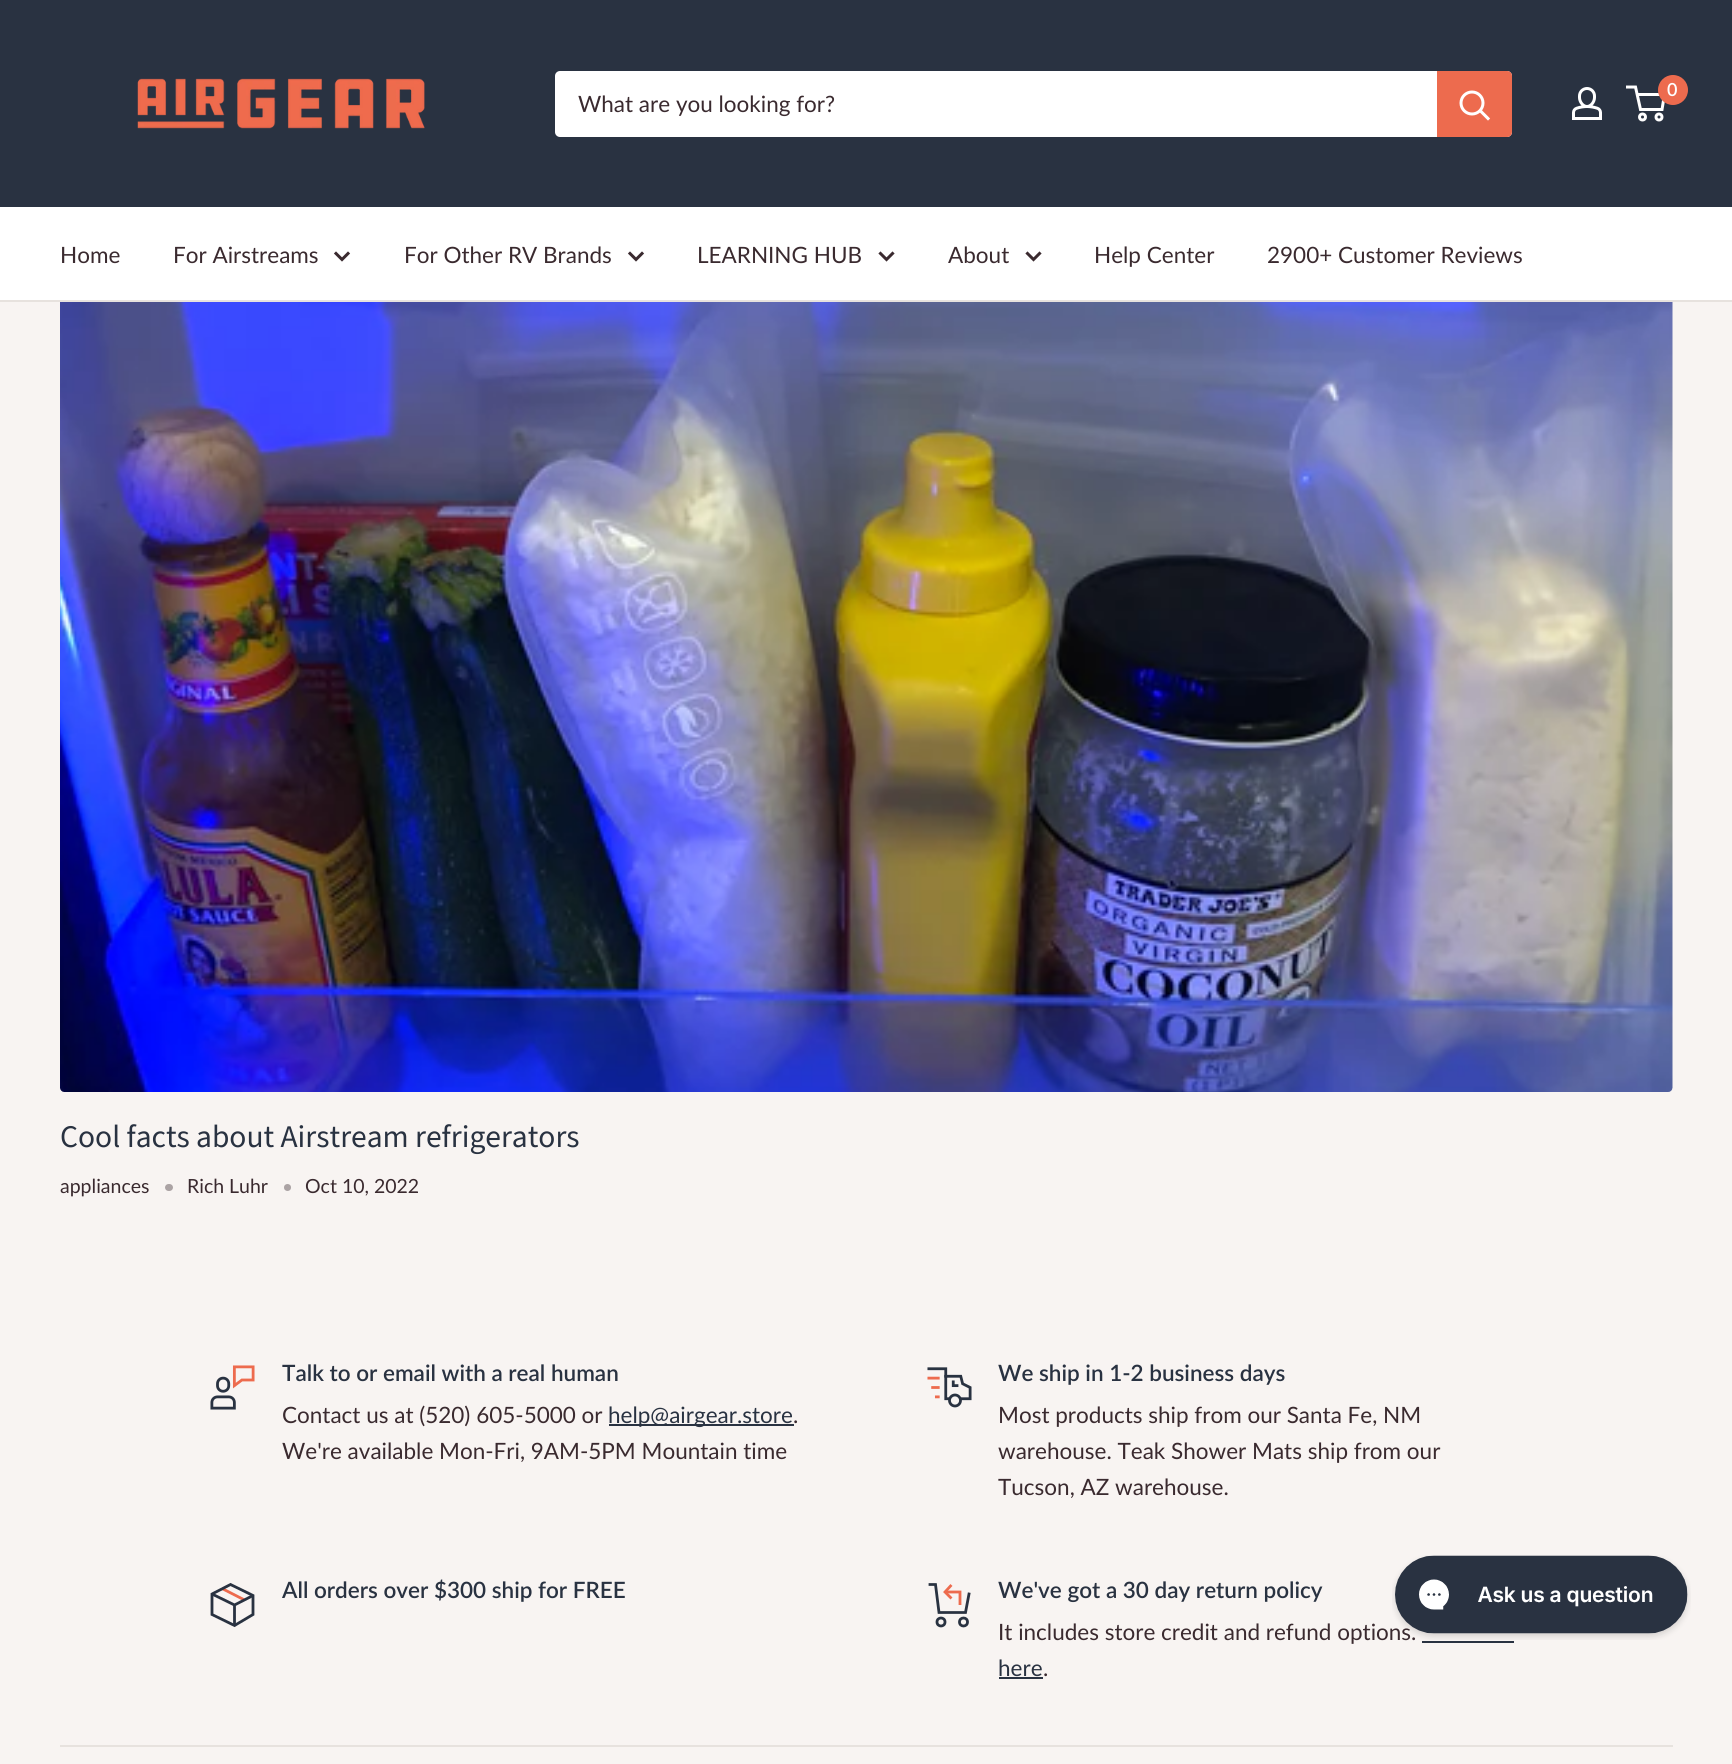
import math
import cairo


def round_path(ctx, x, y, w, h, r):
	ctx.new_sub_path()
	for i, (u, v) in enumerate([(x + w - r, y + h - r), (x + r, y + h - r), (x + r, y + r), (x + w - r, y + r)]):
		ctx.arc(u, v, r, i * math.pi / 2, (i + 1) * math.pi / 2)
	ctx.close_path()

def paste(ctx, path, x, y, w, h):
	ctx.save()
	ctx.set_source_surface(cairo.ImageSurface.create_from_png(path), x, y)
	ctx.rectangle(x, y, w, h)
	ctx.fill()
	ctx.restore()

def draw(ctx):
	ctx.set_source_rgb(0.969, 0.957, 0.949)
	ctx.paint()
	ctx.set_source_rgb(0.161, 0.196, 0.255)
	ctx.rectangle(0, 0, 1732, 207)
	ctx.fill()
	paste(ctx, 'media/1.png', 137, 78, 288, 51)
	paste(ctx, 'media/2.png', 1572, 87, 30, 33)
	ctx.arc(1642.5, 117, 3, 0, 2 * math.pi)
	ctx.set_source_rgb(1, 1, 1)
	ctx.set_line_width(3)
	ctx.stroke()
	ctx.arc(1659, 117, 3, 0, 2 * math.pi)
	ctx.stroke()
	ctx.new_path()
	ctx.move_to(1637, 94.5)
	ctx.line_to(1664.5, 94.5)
	ctx.line_to(1662, 109.5)
	ctx.line_to(1640.5, 109.5)
	ctx.line_to(1635.5, 87)
	ctx.line_to(1626, 87)
	ctx.stroke()
	ctx.set_source_rgb(0.929, 0.42, 0.306)
	ctx.arc(1673, 90, 15, 0, 2 * math.pi)
	ctx.fill()
	ctx.select_font_face('Lato SemiBold')
	ctx.set_font_size(18)
	ctx.set_source_rgb(1, 1, 1)
	ctx.move_to(1667, 96)
	ctx.show_text('0')
	round_path(ctx, 555, 71, 957, 66, 5)
	ctx.fill()
	ctx.select_font_face('Lato')
	ctx.set_font_size(22.5)
	ctx.set_source_rgb(0.227, 0.165, 0.184)
	ctx.move_to(578, 112)
	ctx.show_text('What are you looking for?')
	ctx.set_source_rgb(0.929, 0.42, 0.306)
	ctx.new_path()
	ctx.move_to(1437, 71)
	ctx.line_to(1507, 71)
	ctx.curve_to(1510, 71, 1512, 73, 1512, 76)
	ctx.line_to(1512, 132)
	ctx.curve_to(1512, 135, 1510, 137, 1507, 137)
	ctx.line_to(1437, 137)
	ctx.close_path()
	ctx.fill()
	ctx.new_path()
	ctx.move_to(1488, 118.5)
	ctx.line_to(1480.5, 111)
	ctx.set_source_rgb(1, 1, 1)
	ctx.set_line_cap(cairo.LINE_CAP_SQUARE)
	ctx.stroke()
	ctx.arc(1472, 103, 11, 0, 2 * math.pi)
	ctx.set_line_cap(cairo.LINE_CAP_BUTT)
	ctx.stroke()
	ctx.rectangle(0, 207, 1732, 93)
	ctx.fill()
	ctx.set_source_rgb(0.906, 0.886, 0.871)
	ctx.rectangle(0, 300, 1732, 2)
	ctx.fill()
	ctx.set_source_rgb(0.227, 0.165, 0.184)
	ctx.move_to(60, 263)
	ctx.show_text('Home')
	ctx.move_to(173, 263)
	ctx.show_text('For Airstreams')
	ctx.new_path()
	ctx.move_to(348, 253.5)
	ctx.line_to(342, 259.5)
	ctx.line_to(336, 253.5)
	ctx.set_line_cap(cairo.LINE_CAP_SQUARE)
	ctx.stroke()
	ctx.move_to(404, 263)
	ctx.show_text('For Other RV Brands')
	ctx.new_path()
	ctx.move_to(642, 253.5)
	ctx.line_to(636, 259.5)
	ctx.line_to(630, 253.5)
	ctx.stroke()
	ctx.move_to(697, 263)
	ctx.show_text('LEARNING HUB')
	ctx.new_path()
	ctx.move_to(892.5, 253.5)
	ctx.line_to(886.5, 259.5)
	ctx.line_to(880.5, 253.5)
	ctx.stroke()
	ctx.move_to(948, 263)
	ctx.show_text('About')
	ctx.new_path()
	ctx.move_to(1039.5, 253.5)
	ctx.line_to(1033.5, 259.5)
	ctx.line_to(1027.5, 253.5)
	ctx.stroke()
	ctx.move_to(1094, 263)
	ctx.show_text('Help Center')
	ctx.move_to(1267, 263)
	ctx.show_text('2900+ Customer Reviews')
	paste(ctx, 'media/3.png', 60, 302, 1613, 790)
	ctx.select_font_face('Source Sans Pro')
	ctx.set_font_size(31.5)
	ctx.set_source_rgb(0.161, 0.196, 0.255)
	ctx.move_to(60, 1147)
	ctx.show_text('Cool facts about Airstream refrigerators')
	ctx.select_font_face('Lato')
	ctx.set_font_size(19.5)
	ctx.set_source_rgb(0.227, 0.165, 0.184)
	ctx.move_to(60, 1193)
	ctx.show_text('appliances')
	ctx.set_source_rgb(0.671, 0.639, 0.643)
	round_path(ctx, 165, 1184, 8, 7, 3.5)
	ctx.fill()
	ctx.set_source_rgb(0.227, 0.165, 0.184)
	ctx.move_to(187, 1193)
	ctx.show_text('Rich Luhr')
	ctx.set_source_rgb(0.671, 0.639, 0.643)
	ctx.new_path()
	ctx.arc(287.5, 1187.5, 3.5, 0, 2 * math.pi)
	ctx.fill()
	ctx.set_source_rgb(0.227, 0.165, 0.184)
	ctx.move_to(305, 1193)
	ctx.show_text('Oct 10, 2022')
	paste(ctx, 'media/4.png', 210, 1365, 45, 45)
	ctx.select_font_face('Lato SemiBold')
	ctx.set_font_size(22.5)
	ctx.set_source_rgb(0.161, 0.196, 0.255)
	ctx.move_to(282, 1381)
	ctx.show_text('Talk to or email with a real human')
	ctx.select_font_face('Lato')
	ctx.set_source_rgb(0.227, 0.165, 0.184)
	ctx.move_to(282, 1423)
	ctx.show_text('Contact us at (520) 605-5000 or')
	ctx.set_source_rgb(0.161, 0.196, 0.255)
	ctx.rectangle(609, 1424, 185, 2)
	ctx.fill()
	ctx.move_to(608, 1423)
	ctx.show_text('help@airgear.store')
	ctx.set_source_rgb(0.227, 0.165, 0.184)
	ctx.move_to(793, 1423)
	ctx.show_text('.')
	ctx.move_to(282, 1459)
	ctx.show_text('We\'re available Mon-Fri, 9AM-5PM Mountain time')
	paste(ctx, 'media/5.png', 927, 1367, 45, 41)
	ctx.select_font_face('Lato SemiBold')
	ctx.set_source_rgb(0.161, 0.196, 0.255)
	ctx.move_to(998, 1381)
	ctx.show_text('We ship in 1-2 business days')
	ctx.select_font_face('Lato')
	ctx.set_source_rgb(0.227, 0.165, 0.184)
	for x, y, s in [
		(998, 1423, 'Most products ship from our Santa Fe, NM'),
		(998, 1459, 'warehouse. Teak Shower Mats ship from our'),
		(998, 1495, 'Tucson, AZ warehouse.'),
	]:
		ctx.move_to(x, y)
		ctx.show_text(s)
	ctx.new_path()
	ctx.move_to(222, 1588.5)
	ctx.line_to(244.5, 1600)
	ctx.set_source_rgb(0.929, 0.42, 0.306)
	ctx.set_line_width(2.8)
	ctx.set_line_cap(cairo.LINE_CAP_BUTT)
	ctx.stroke()
	ctx.new_path()
	ctx.move_to(253, 1595.5)
	ctx.line_to(234.5, 1605)
	ctx.line_to(212, 1594)
	ctx.move_to(234.5, 1605)
	ctx.line_to(234.5, 1625.5)
	ctx.set_source_rgb(0.161, 0.196, 0.255)
	ctx.stroke()
	ctx.new_path()
	ctx.move_to(253, 1595.5)
	ctx.line_to(253, 1614.5)
	ctx.line_to(234.5, 1625.5)
	ctx.line_to(212, 1614.5)
	ctx.line_to(212, 1594)
	ctx.line_to(230.5, 1584.5)
	ctx.close_path()
	ctx.set_line_cap(cairo.LINE_CAP_SQUARE)
	ctx.stroke()
	ctx.select_font_face('Lato SemiBold')
	ctx.move_to(282, 1598)
	ctx.show_text('All orders over $300 ship for FREE')
	ctx.new_path()
	ctx.move_to(945, 1592)
	ctx.line_to(960, 1592)
	ctx.line_to(960, 1605)
	ctx.set_source_rgb(0.929, 0.42, 0.306)
	ctx.set_line_cap(cairo.LINE_CAP_BUTT)
	ctx.stroke()
	ctx.new_path()
	ctx.move_to(950.5, 1597.5)
	ctx.line_to(945, 1592)
	ctx.line_to(950.5, 1586)
	ctx.set_line_cap(cairo.LINE_CAP_SQUARE)
	ctx.stroke()
	ctx.new_path()
	ctx.move_to(969, 1594)
	ctx.line_to(965.5, 1612.5)
	ctx.line_to(939, 1612.5)
	ctx.line_to(935.5, 1584.5)
	ctx.line_to(930, 1584.5)
	ctx.set_source_rgb(0.161, 0.196, 0.255)
	ctx.stroke()
	ctx.arc(941, 1622, 4, 0, 2 * math.pi)
	ctx.set_line_cap(cairo.LINE_CAP_BUTT)
	ctx.stroke()
	ctx.arc(963.5, 1622, 4, 0, 2 * math.pi)
	ctx.stroke()
	ctx.move_to(998, 1598)
	ctx.show_text('We\'ve got a 30 day return policy')
	ctx.select_font_face('Lato')
	ctx.set_source_rgb(0.227, 0.165, 0.184)
	ctx.move_to(998, 1640)
	ctx.show_text('It includes store credit and refund options.')
	ctx.set_source_rgb(0.161, 0.196, 0.255)
	ctx.move_to(998, 1676)
	ctx.show_text('here')
	ctx.rectangle(1422, 1641, 92, 2)
	ctx.fill()
	ctx.rectangle(999, 1677, 44, 2)
	ctx.fill()
	ctx.set_source_rgb(0.227, 0.165, 0.184)
	ctx.move_to(1043, 1676)
	ctx.show_text('.')
	paste(ctx, 'media/6.png', 1392, 1555, 299, 85)
	ctx.set_source_rgb(0.906, 0.886, 0.871)
	ctx.rectangle(60, 1745, 1613, 2)
	ctx.fill()


surface = cairo.ImageSurface(cairo.FORMAT_RGB24, 1732, 1764)
ctx = cairo.Context(surface)
options = cairo.FontOptions()
options.set_hint_metrics(cairo.HINT_METRICS_OFF)
options.set_hint_style(cairo.HINT_STYLE_NONE)
ctx.set_font_options(options)
ctx.set_miter_limit(4)
draw(ctx)
surface.write_to_png('image.png')
